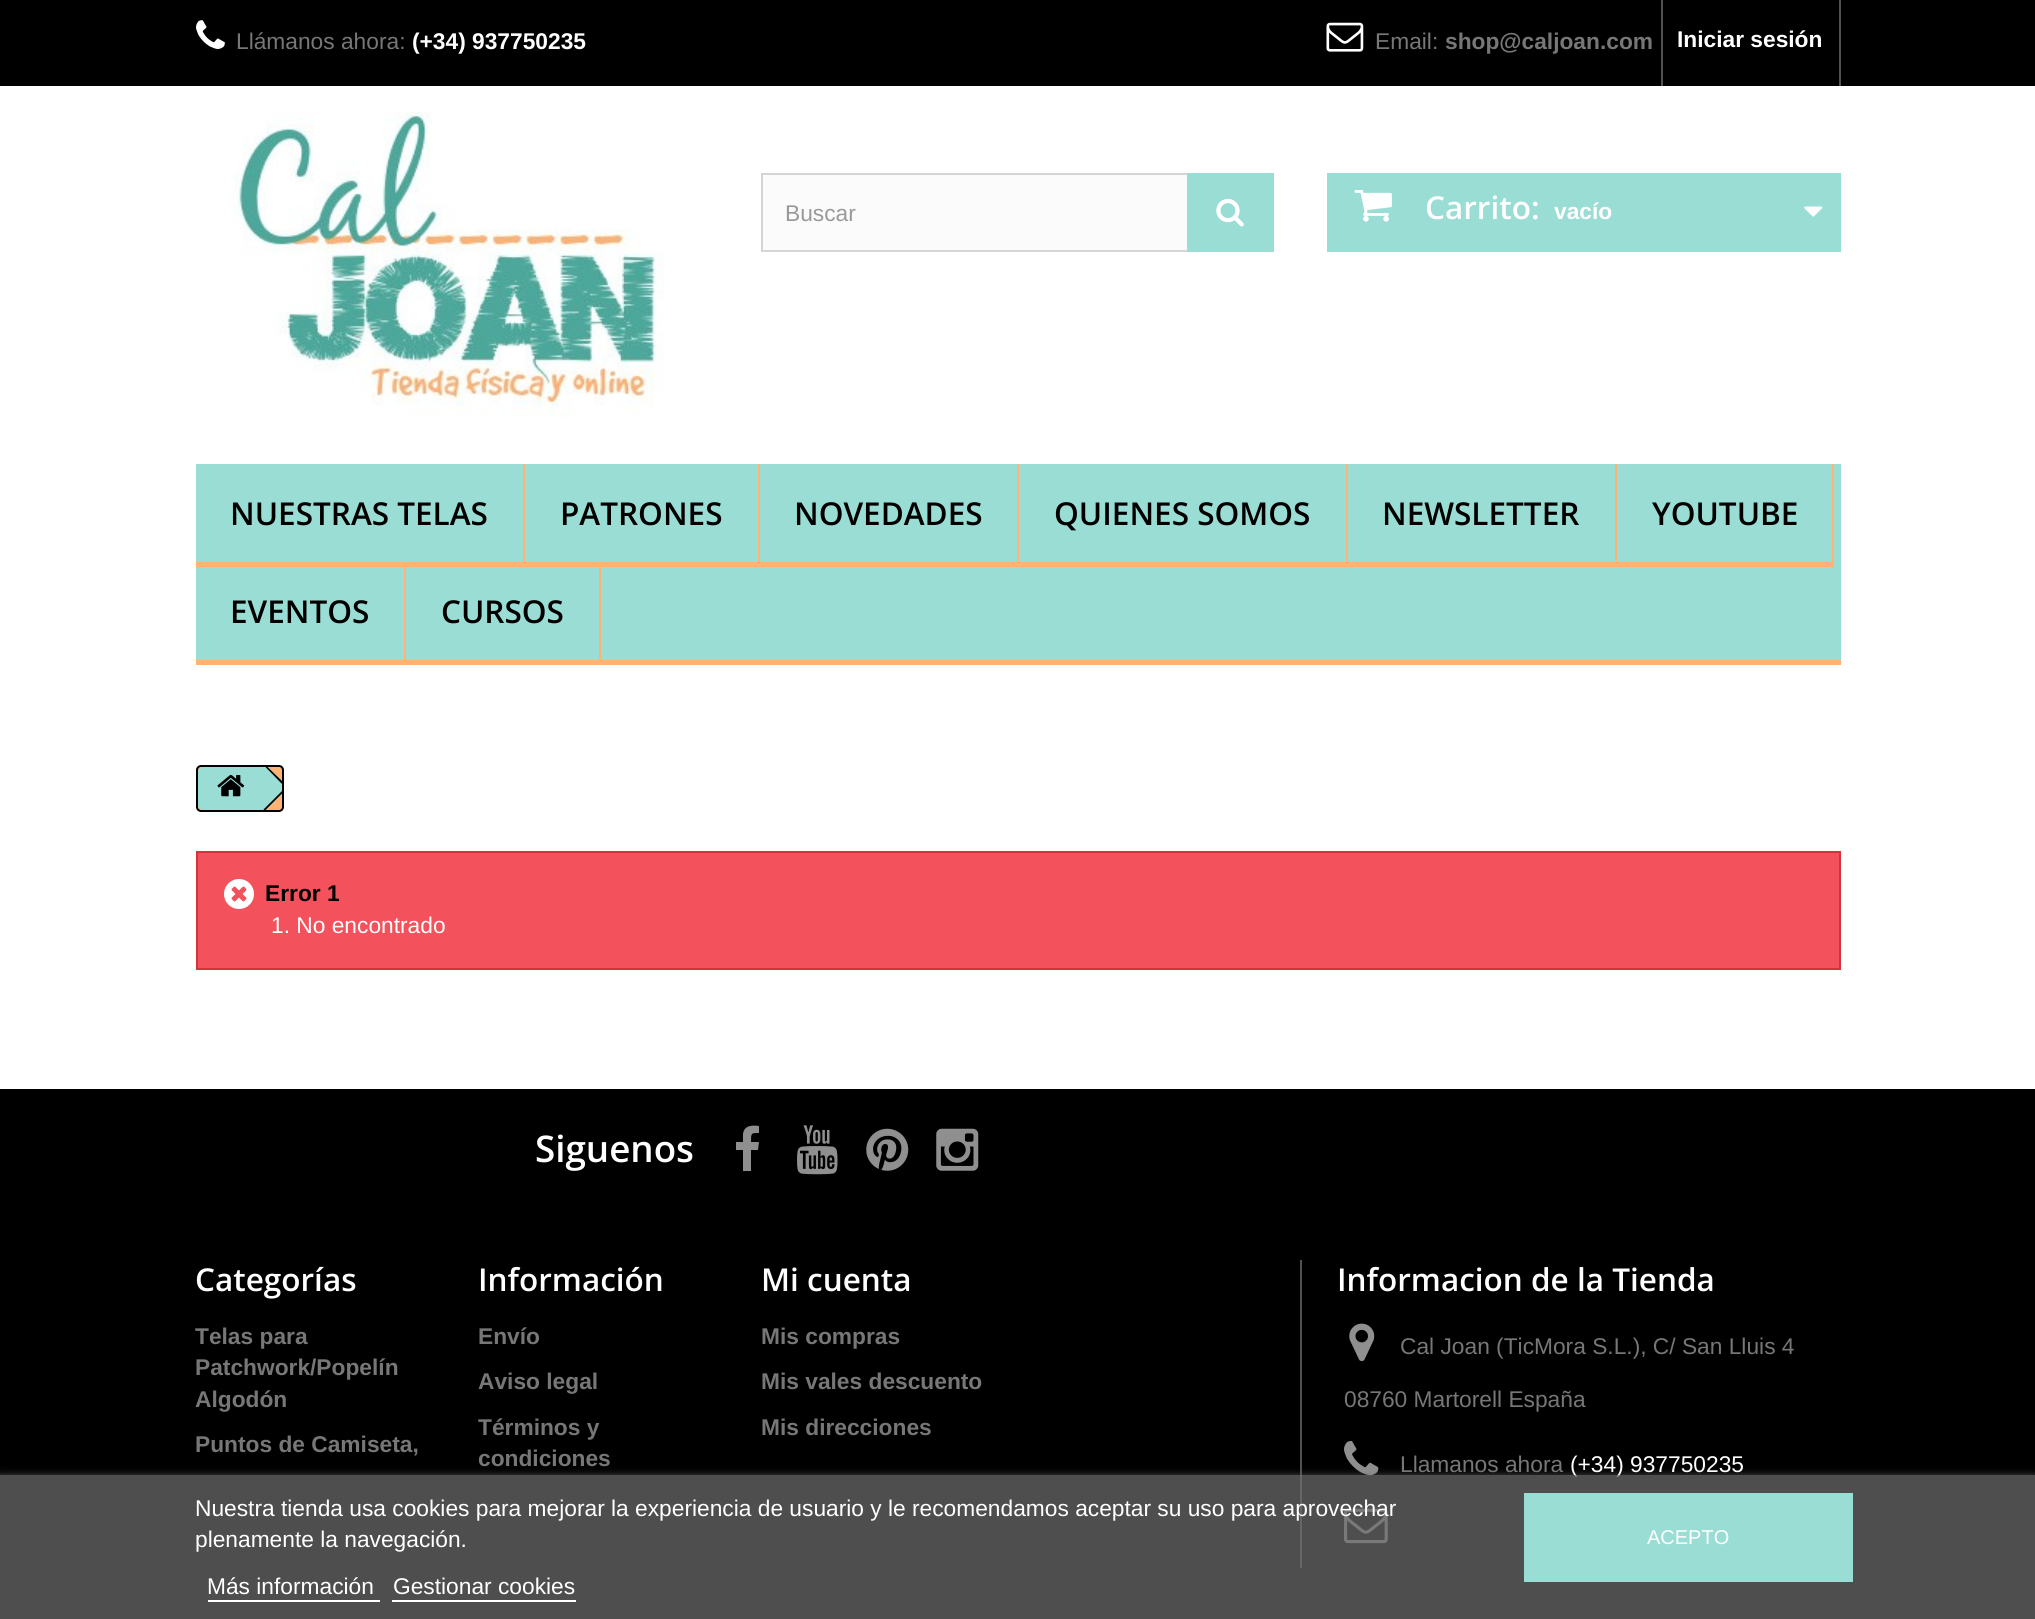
import math
import cairo


def round_path(ctx, x, y, w, h, r):
	ctx.new_sub_path()
	for i, (u, v) in enumerate([(x + w - r, y + h - r), (x + r, y + h - r), (x + r, y + r), (x + w - r, y + r)]):
		ctx.arc(u, v, r, i * math.pi / 2, (i + 1) * math.pi / 2)
	ctx.close_path()

def blur_box(ctx, x, y, w, h, r, blur, alpha):
	ctx.push_group_with_content(cairo.CONTENT_ALPHA)
	ctx.set_operator(cairo.OPERATOR_SOURCE)
	for i in range(15, -16, -2):
		e = blur * i / 6
		if min(w, h) + 2 * e > 0:
			ctx.set_source_rgba(0, 0, 0, alpha * math.erfc((i - 1) / 8.5) / 2)
			round_path(ctx, x - e, y - e, w + 2 * e, h + 2 * e, max(0, min(r + e + blur * .6, min(w, h) / 2 + e)))
			ctx.fill()
	ctx.mask(ctx.pop_group())

def paste(ctx, path, x, y, w, h):
	ctx.save()
	ctx.set_source_surface(cairo.ImageSurface.create_from_png(path), x, y)
	ctx.rectangle(x, y, w, h)
	ctx.fill()
	ctx.restore()

def draw(ctx):
	ctx.set_source_rgb(1, 1, 1)
	ctx.paint()
	ctx.set_source_rgb(0, 0, 0)
	ctx.rectangle(0, 0, 2035, 86)
	ctx.fill()
	paste(ctx, 'media/1.png', 196, 20, 29, 29)
	ctx.select_font_face('Liberation Sans')
	ctx.set_font_size(22.75)
	ctx.set_source_rgb(0.467, 0.467, 0.467)
	ctx.move_to(236, 49)
	ctx.show_text('Llámanos ahora:')
	ctx.select_font_face('Liberation Sans', cairo.FONT_SLANT_NORMAL, cairo.FONT_WEIGHT_BOLD)
	ctx.set_source_rgb(1, 1, 1)
	ctx.move_to(412, 49)
	ctx.show_text('(+34) 937750235')
	paste(ctx, 'media/2.png', 1326, 22, 38, 30)
	ctx.select_font_face('Liberation Sans')
	ctx.set_source_rgb(0.467, 0.467, 0.467)
	ctx.move_to(1375, 49)
	ctx.show_text('Email:')
	ctx.select_font_face('Liberation Sans', cairo.FONT_SLANT_NORMAL, cairo.FONT_WEIGHT_BOLD)
	ctx.move_to(1445, 49)
	ctx.show_text('shop@caljoan.com')
	ctx.set_source_rgb(0.318, 0.318, 0.318)
	ctx.rectangle(1839, 0, 2, 86)
	ctx.fill()
	ctx.rectangle(1661, 0, 2, 86)
	ctx.fill()
	ctx.set_source_rgb(1, 1, 1)
	ctx.move_to(1677, 47)
	ctx.show_text('Iniciar sesión')
	paste(ctx, 'media/3.png', 233, 112, 432, 306)
	ctx.set_source_rgb(0.984, 0.984, 0.984)
	ctx.rectangle(763, 175, 424, 75)
	ctx.fill()
	ctx.rectangle(762, 174, 511, 77)
	ctx.set_source_rgb(0.839, 0.831, 0.831)
	ctx.stroke()
	ctx.select_font_face('Liberation Sans')
	ctx.set_source_rgb(0.6, 0.6, 0.6)
	ctx.move_to(785, 221)
	ctx.show_text('Buscar')
	ctx.set_source_rgb(0.6, 0.867, 0.831)
	ctx.rectangle(1187, 173, 87, 79)
	ctx.fill()
	paste(ctx, 'media/4.png', 1216, 198, 28, 29)
	ctx.rectangle(1327, 173, 514, 79)
	ctx.fill()
	paste(ctx, 'media/5.png', 1354, 190, 38, 32)
	ctx.select_font_face('Open Sans SemiBold')
	ctx.set_font_size(31.5)
	ctx.set_source_rgb(1, 1, 1)
	ctx.move_to(1425, 219)
	ctx.show_text('Carrito:')
	ctx.select_font_face('Liberation Sans', cairo.FONT_SLANT_NORMAL, cairo.FONT_WEIGHT_BOLD)
	ctx.set_font_size(22.75)
	ctx.move_to(1554, 219)
	ctx.show_text('vacío')
	paste(ctx, 'media/6.png', 1804, 206, 19, 11)
	ctx.set_source_rgb(0.6, 0.867, 0.831)
	ctx.rectangle(196, 464, 1645, 196)
	ctx.fill()
	ctx.set_source_rgb(1, 0.698, 0.455)
	ctx.rectangle(196, 660, 1645, 5)
	ctx.rectangle(523, 464, 2, 103)
	ctx.rectangle(196, 562, 327, 5)
	ctx.fill()
	ctx.select_font_face('Open Sans SemiBold')
	ctx.set_font_size(31.5)
	ctx.set_source_rgb(0, 0, 0)
	ctx.move_to(230, 525)
	ctx.show_text('NUESTRAS TELAS')
	ctx.set_source_rgb(1, 0.698, 0.455)
	ctx.rectangle(758, 464, 2, 103)
	ctx.fill()
	ctx.rectangle(525, 562, 233, 5)
	ctx.fill()
	ctx.set_source_rgb(0, 0, 0)
	ctx.move_to(560, 525)
	ctx.show_text('PATRONES')
	ctx.set_source_rgb(1, 0.698, 0.455)
	ctx.rectangle(1017, 464, 2, 103)
	ctx.fill()
	ctx.rectangle(760, 562, 257, 5)
	ctx.fill()
	ctx.set_source_rgb(0, 0, 0)
	ctx.move_to(794, 525)
	ctx.show_text('NOVEDADES')
	ctx.set_source_rgb(1, 0.698, 0.455)
	ctx.rectangle(1346, 464, 2, 103)
	ctx.fill()
	ctx.rectangle(1019, 562, 327, 5)
	ctx.fill()
	ctx.set_source_rgb(0, 0, 0)
	ctx.move_to(1054, 525)
	ctx.show_text('QUIENES SOMOS')
	ctx.set_source_rgb(1, 0.698, 0.455)
	ctx.rectangle(1615, 464, 2, 103)
	ctx.fill()
	ctx.rectangle(1348, 562, 267, 5)
	ctx.fill()
	ctx.set_source_rgb(0, 0, 0)
	ctx.move_to(1382, 525)
	ctx.show_text('NEWSLETTER')
	ctx.set_source_rgb(1, 0.698, 0.455)
	ctx.rectangle(1832, 464, 2, 103)
	ctx.fill()
	ctx.rectangle(1617, 562, 215, 5)
	ctx.fill()
	ctx.set_source_rgb(0, 0, 0)
	ctx.move_to(1652, 525)
	ctx.show_text('YOUTUBE')
	ctx.set_source_rgb(1, 0.698, 0.455)
	ctx.rectangle(404, 562, 2, 103)
	ctx.fill()
	ctx.set_source_rgb(0, 0, 0)
	ctx.move_to(230, 623)
	ctx.show_text('EVENTOS')
	ctx.set_source_rgb(1, 0.698, 0.455)
	ctx.rectangle(599, 562, 2, 103)
	ctx.fill()
	ctx.set_source_rgb(0, 0, 0)
	ctx.move_to(441, 623)
	ctx.show_text('CURSOS')
	ctx.rectangle(0, 1089, 2035, 530)
	ctx.fill()
	ctx.set_source_rgb(0.318, 0.318, 0.318)
	ctx.rectangle(1300, 1260, 2, 308)
	ctx.fill()
	paste(ctx, 'media/13.png', 1344, 1440, 35, 36)
	paste(ctx, 'media/14.png', 1344, 1508, 44, 36)
	ctx.save()
	ctx.set_fill_rule(cairo.FILL_RULE_EVEN_ODD)
	ctx.new_path()
	ctx.move_to(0, 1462)
	ctx.line_to(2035, 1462)
	ctx.line_to(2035, 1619)
	ctx.line_to(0, 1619)
	ctx.close_path()
	ctx.move_to(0, 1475)
	ctx.line_to(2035, 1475)
	ctx.line_to(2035, 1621)
	ctx.line_to(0, 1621)
	ctx.close_path()
	ctx.clip()
	ctx.set_source_rgb(0.439, 0.439, 0.439)
	blur_box(ctx, 0, 1477, 2035, 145, 0, 4.5, 1)
	ctx.restore()
	ctx.select_font_face('Liberation Sans')
	ctx.set_font_size(22.75)
	ctx.set_source_rgb(1, 1, 1)
	ctx.move_to(1570, 1472)
	ctx.show_text('(+34) 937750235')
	ctx.set_source_rgba(0.439, 0.439, 0.439, 0.7)
	ctx.rectangle(0, 1475, 2035, 144)
	ctx.fill()
	ctx.set_source_rgb(1, 1, 1)
	for x, y, s in [
		(195, 1516, 'Nuestra tienda usa cookies para mejorar la experiencia de usuario y le recomendamos aceptar su uso para aprovechar'),
		(195, 1547, 'plenamente la navegación.'),
		(207, 1594, 'Más información'),
	]:
		ctx.move_to(x, y)
		ctx.show_text(s)
	ctx.rectangle(208, 1600, 172, 2)
	ctx.fill()
	ctx.move_to(393, 1594)
	ctx.show_text('Gestionar cookies')
	ctx.rectangle(392, 1600, 184, 2)
	ctx.fill()
	ctx.set_source_rgb(0.6, 0.867, 0.831)
	ctx.rectangle(1524, 1493, 329, 89)
	ctx.fill()
	ctx.set_font_size(20)
	ctx.set_source_rgb(1, 1, 1)
	ctx.move_to(1647, 1544)
	ctx.show_text('ACEPTO')
	ctx.set_source_rgb(1, 0.698, 0.455)
	round_path(ctx, 197, 766, 86, 45, 4)
	ctx.fill_preserve()
	ctx.set_source_rgb(0, 0, 0)
	ctx.stroke()
	ctx.save()
	round_path(ctx, 198, 767, 84, 43, 4)
	ctx.clip()
	ctx.set_source_rgb(0.6, 0.867, 0.831)
	ctx.new_path()
	ctx.move_to(203, 767)
	ctx.line_to(264, 767)
	ctx.line_to(264, 810)
	ctx.line_to(203, 810)
	ctx.curve_to(200, 810, 198, 808, 198, 805)
	ctx.line_to(198, 772)
	ctx.curve_to(198, 769, 200, 767, 203, 767)
	ctx.close_path()
	ctx.fill()
	ctx.restore()
	ctx.set_source_rgb(0.6, 0.867, 0.831)
	ctx.new_path()
	ctx.move_to(266, 810)
	ctx.line_to(261, 810)
	ctx.line_to(241, 790)
	ctx.curve_to(240, 789, 240, 786, 241, 785)
	ctx.line_to(259, 767)
	ctx.line_to(268, 767)
	ctx.line_to(282, 781)
	ctx.line_to(282, 794)
	ctx.close_path()
	ctx.fill()
	paste(ctx, 'media/7.png', 217, 775, 28, 22)
	ctx.set_source_rgb(0, 0, 0)
	ctx.new_path()
	ctx.move_to(282, 784)
	ctx.line_to(265.5, 767)
	ctx.line_to(267.5, 767)
	ctx.line_to(282, 781)
	ctx.close_path()
	ctx.move_to(265.5, 810)
	ctx.line_to(264, 810)
	ctx.line_to(263.5, 809.5)
	ctx.line_to(282, 791)
	ctx.line_to(282, 793.5)
	ctx.close_path()
	ctx.fill()
	ctx.set_source_rgb(0.953, 0.318, 0.361)
	ctx.rectangle(197, 852, 1643, 117)
	ctx.fill_preserve()
	ctx.set_source_rgb(0.831, 0.196, 0.239)
	ctx.stroke()
	paste(ctx, 'media/8.png', 224, 879, 30, 30)
	ctx.select_font_face('Liberation Sans', cairo.FONT_SLANT_NORMAL, cairo.FONT_WEIGHT_BOLD)
	ctx.set_font_size(22.75)
	ctx.set_source_rgb(0, 0, 0)
	ctx.move_to(265, 901)
	ctx.show_text('Error 1')
	ctx.select_font_face('Liberation Sans')
	ctx.set_source_rgb(1, 1, 1)
	ctx.move_to(271, 933)
	ctx.show_text('1. No encontrado')
	ctx.select_font_face('Open Sans SemiBold')
	ctx.set_font_size(36.75)
	ctx.move_to(535, 1162)
	ctx.show_text('Siguenos')
	ctx.set_source_rgb(0.565, 0.561, 0.561)
	ctx.new_path()
	ctx.move_to(736, 1150)
	ctx.line_to(736, 1142)
	ctx.line_to(743, 1142)
	ctx.line_to(743, 1134)
	ctx.curve_to(744, 1125, 753, 1125, 759, 1126)
	ctx.line_to(759, 1133)
	ctx.curve_to(751, 1133, 751, 1133, 751, 1142)
	ctx.line_to(759, 1142)
	ctx.line_to(758, 1150)
	ctx.line_to(751, 1150)
	ctx.line_to(751, 1171)
	ctx.line_to(743, 1171)
	ctx.line_to(743, 1150)
	ctx.close_path()
	ctx.fill()
	paste(ctx, 'media/9.png', 797, 1125, 41, 50)
	paste(ctx, 'media/10.png', 866, 1128, 43, 43)
	paste(ctx, 'media/11.png', 936, 1128, 43, 43)
	ctx.set_font_size(31.5)
	ctx.set_source_rgb(1, 1, 1)
	ctx.move_to(195, 1291)
	ctx.show_text('Categorías')
	ctx.select_font_face('Liberation Sans', cairo.FONT_SLANT_NORMAL, cairo.FONT_WEIGHT_BOLD)
	ctx.set_font_size(22.75)
	ctx.set_source_rgb(0.467, 0.467, 0.467)
	for x, y, s in [
		(195, 1344, 'Telas para'),
		(195, 1375, 'Patchwork/Popelín'),
		(195, 1407, 'Algodón'),
		(195, 1452, 'Puntos de Camiseta,'),
	]:
		ctx.move_to(x, y)
		ctx.show_text(s)
	ctx.select_font_face('Open Sans SemiBold')
	ctx.set_font_size(31.5)
	ctx.set_source_rgb(1, 1, 1)
	ctx.move_to(478, 1291)
	ctx.show_text('Información')
	ctx.select_font_face('Liberation Sans', cairo.FONT_SLANT_NORMAL, cairo.FONT_WEIGHT_BOLD)
	ctx.set_font_size(22.75)
	ctx.set_source_rgb(0.467, 0.467, 0.467)
	for x, y, s in [
		(478, 1344, 'Envío'),
		(478, 1389, 'Aviso legal'),
		(478, 1435, 'Términos y'),
		(478, 1466, 'condiciones'),
	]:
		ctx.move_to(x, y)
		ctx.show_text(s)
	ctx.select_font_face('Open Sans SemiBold')
	ctx.set_font_size(31.5)
	ctx.set_source_rgb(1, 1, 1)
	ctx.move_to(761, 1291)
	ctx.show_text('Mi cuenta')
	ctx.select_font_face('Liberation Sans', cairo.FONT_SLANT_NORMAL, cairo.FONT_WEIGHT_BOLD)
	ctx.set_font_size(22.75)
	ctx.set_source_rgb(0.467, 0.467, 0.467)
	for x, y, s in [
		(761, 1344, 'Mis compras'),
		(761, 1389, 'Mis vales descuento'),
		(761, 1435, 'Mis direcciones'),
	]:
		ctx.move_to(x, y)
		ctx.show_text(s)
	ctx.select_font_face('Open Sans SemiBold')
	ctx.set_font_size(31.5)
	ctx.set_source_rgb(1, 1, 1)
	ctx.move_to(1337, 1291)
	ctx.show_text('Informacion de la Tienda')
	paste(ctx, 'media/12.png', 1349, 1323, 26, 39)
	ctx.select_font_face('Liberation Sans')
	ctx.set_font_size(22.75)
	ctx.set_source_rgb(0.467, 0.467, 0.467)
	for x, y, s in [
		(1400, 1354, 'Cal Joan (TicMora S.L.), C/ San Lluis 4'),
		(1344, 1407, '08760 Martorell España'),
		(1400, 1472, 'Llamanos ahora'),
	]:
		ctx.move_to(x, y)
		ctx.show_text(s)


surface = cairo.ImageSurface(cairo.FORMAT_RGB24, 2035, 1619)
ctx = cairo.Context(surface)
options = cairo.FontOptions()
options.set_hint_metrics(cairo.HINT_METRICS_OFF)
options.set_hint_style(cairo.HINT_STYLE_NONE)
ctx.set_font_options(options)
ctx.set_miter_limit(4)
draw(ctx)
surface.write_to_png('image.png')
